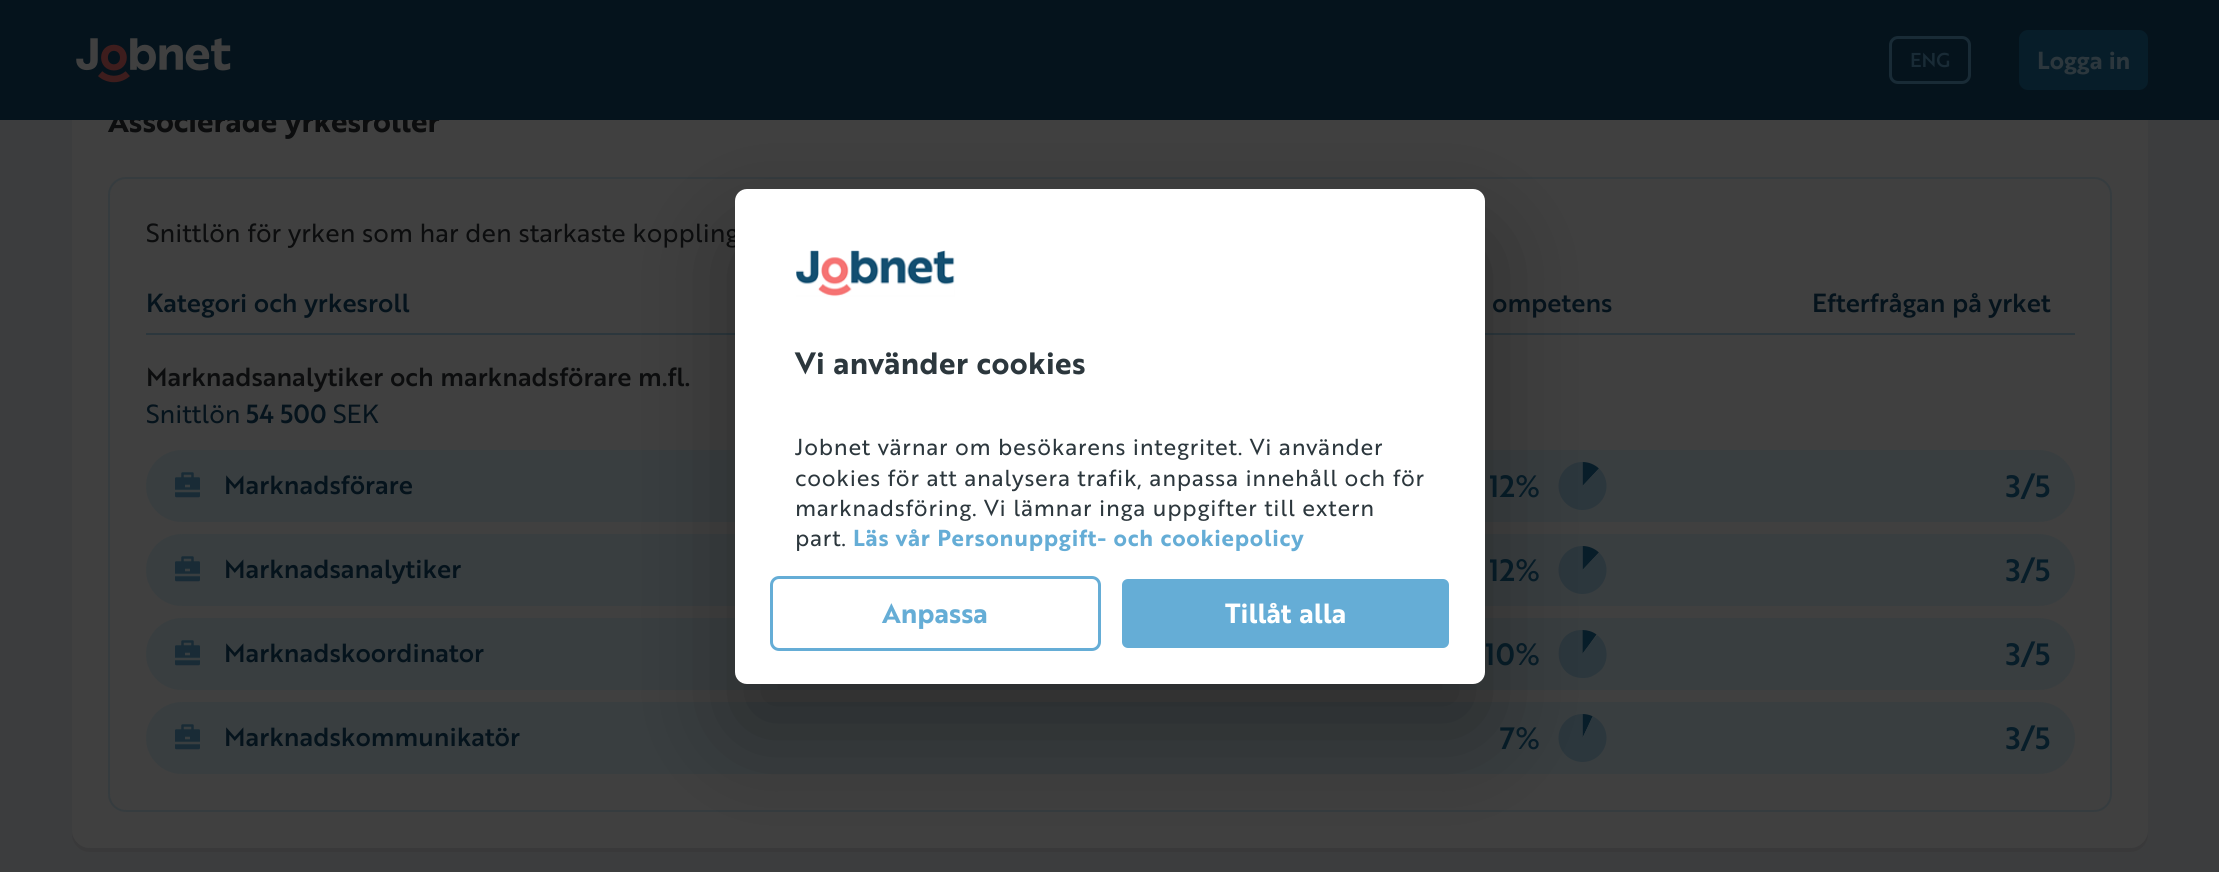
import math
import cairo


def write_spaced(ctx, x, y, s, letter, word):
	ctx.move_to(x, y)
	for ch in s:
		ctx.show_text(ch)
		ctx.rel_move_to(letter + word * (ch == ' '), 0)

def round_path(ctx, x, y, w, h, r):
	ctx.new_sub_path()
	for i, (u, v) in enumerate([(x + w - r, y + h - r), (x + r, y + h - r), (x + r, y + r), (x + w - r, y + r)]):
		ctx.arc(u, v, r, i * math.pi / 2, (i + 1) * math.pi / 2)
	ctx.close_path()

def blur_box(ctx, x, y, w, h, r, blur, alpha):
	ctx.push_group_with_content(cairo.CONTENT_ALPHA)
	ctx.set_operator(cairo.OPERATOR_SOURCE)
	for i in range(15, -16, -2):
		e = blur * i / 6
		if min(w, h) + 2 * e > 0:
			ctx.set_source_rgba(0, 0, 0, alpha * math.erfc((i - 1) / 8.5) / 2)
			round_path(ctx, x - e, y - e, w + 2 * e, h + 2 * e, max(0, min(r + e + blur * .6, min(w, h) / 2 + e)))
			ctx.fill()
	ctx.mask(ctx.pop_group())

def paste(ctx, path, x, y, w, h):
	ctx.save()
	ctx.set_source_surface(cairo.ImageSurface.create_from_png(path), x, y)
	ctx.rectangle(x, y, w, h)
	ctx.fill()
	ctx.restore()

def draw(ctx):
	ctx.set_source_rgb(0.235, 0.239, 0.243)
	ctx.paint()
	ctx.set_source_rgb(0.224, 0.224, 0.227)
	ctx.new_path()
	ctx.move_to(72, 830)
	ctx.line_to(72, 834)
	ctx.curve_to(72, 844, 80, 852, 90, 852)
	ctx.line_to(2130, 852)
	ctx.curve_to(2140, 852, 2148, 844, 2148, 834)
	ctx.line_to(2148, 830)
	ctx.curve_to(2148, 839, 2140, 848, 2130, 848)
	ctx.line_to(90, 848)
	ctx.curve_to(80, 848, 72, 839, 72, 830)
	ctx.close_path()
	ctx.fill()
	ctx.set_source_rgb(0.251, 0.251, 0.251)
	round_path(ctx, 72, 65, 2076, 783, 18)
	ctx.fill()
	ctx.select_font_face('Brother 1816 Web', cairo.FONT_SLANT_NORMAL, cairo.FONT_WEIGHT_BOLD)
	ctx.set_font_size(30)
	ctx.set_source_rgb(0.047, 0.051, 0.055)
	ctx.move_to(108, 132)
	ctx.show_text('Associerade yrkesroller')
	ctx.set_source_rgb(0.02, 0.078, 0.11)
	ctx.rectangle(0, 0, 2219, 120)
	ctx.fill()
	paste(ctx, 'media/1.png', 76, 38, 155, 45)
	round_path(ctx, 1890.5, 37.5, 79, 45, 7.5)
	ctx.set_source_rgb(0.098, 0.169, 0.212)
	ctx.set_line_width(3)
	ctx.stroke()
	ctx.select_font_face('Brother 1816 Web Medium')
	ctx.set_font_size(19.5)
	ctx.move_to(1910, 67)
	ctx.show_text('ENG')
	ctx.set_source_rgb(0.031, 0.114, 0.161)
	round_path(ctx, 2019, 30, 129, 60, 9)
	ctx.fill()
	ctx.select_font_face('Brother 1816 Web', cairo.FONT_SLANT_NORMAL, cairo.FONT_WEIGHT_BOLD)
	ctx.set_font_size(24)
	ctx.set_source_rgb(0.173, 0.216, 0.239)
	ctx.move_to(2037, 69)
	ctx.show_text('Logga in')
	round_path(ctx, 109, 178, 2002, 633, 17)
	ctx.set_source_rgb(0.212, 0.235, 0.247)
	ctx.set_line_width(2)
	ctx.stroke()
	ctx.select_font_face('Brother 1816 Web')
	ctx.set_font_size(25.5)
	ctx.set_source_rgb(0.047, 0.051, 0.055)
	ctx.move_to(146, 242)
	ctx.show_text('Snittlön för yrken som har den starkaste koppling')
	ctx.set_source_rgb(0.173, 0.216, 0.239)
	ctx.rectangle(146, 333, 1929, 2)
	ctx.fill()
	ctx.select_font_face('Brother 1816 Web Medium')
	ctx.set_source_rgb(0.02, 0.078, 0.11)
	for x, y, s in [
		(146, 312, 'Kategori och yrkesroll'),
		(1492, 312, 'ompetens'),
		(1812, 312, 'Efterfrågan på yrket'),
	]:
		ctx.move_to(x, y)
		ctx.show_text(s)
	ctx.set_source_rgb(0.047, 0.051, 0.055)
	ctx.move_to(146, 386)
	ctx.show_text('Marknadsanalytiker och marknadsförare m.fl.')
	ctx.select_font_face('Brother 1816 Web')
	ctx.set_source_rgb(0.02, 0.078, 0.11)
	ctx.move_to(146, 423)
	ctx.show_text('Snittlön')
	ctx.select_font_face('Brother 1816 Web Medium')
	ctx.move_to(246, 423)
	ctx.show_text('54 500')
	ctx.select_font_face('Brother 1816 Web')
	ctx.move_to(333, 423)
	ctx.show_text('SEK')
	ctx.set_source_rgb(0.224, 0.243, 0.251)
	round_path(ctx, 146, 450, 1929, 72, 36)
	ctx.fill()
	paste(ctx, 'media/2.png', 175, 472, 25, 26)
	ctx.select_font_face('Brother 1816 Web Medium')
	ctx.set_source_rgb(0.02, 0.078, 0.11)
	ctx.move_to(224, 494)
	ctx.show_text('Marknadsförare')
	ctx.set_font_size(30)
	ctx.set_source_rgb(0.031, 0.114, 0.161)
	ctx.move_to(1489, 497)
	ctx.show_text('12%')
	paste(ctx, 'media/3.png', 1558, 462, 49, 48)
	ctx.move_to(2006, 497)
	ctx.show_text('3/5')
	ctx.set_source_rgb(0.224, 0.243, 0.251)
	round_path(ctx, 146, 534, 1929, 72, 36)
	ctx.fill()
	paste(ctx, 'media/2.png', 175, 556, 25, 26)
	ctx.set_font_size(25.5)
	ctx.set_source_rgb(0.02, 0.078, 0.11)
	ctx.move_to(224, 578)
	ctx.show_text('Marknadsanalytiker')
	ctx.set_font_size(30)
	ctx.set_source_rgb(0.031, 0.114, 0.161)
	ctx.move_to(1489, 581)
	ctx.show_text('12%')
	paste(ctx, 'media/3.png', 1558, 546, 49, 48)
	ctx.move_to(2006, 581)
	ctx.show_text('3/5')
	ctx.set_source_rgb(0.224, 0.243, 0.251)
	round_path(ctx, 146, 618, 1929, 72, 36)
	ctx.fill()
	paste(ctx, 'media/2.png', 175, 640, 25, 26)
	ctx.set_font_size(25.5)
	ctx.set_source_rgb(0.02, 0.078, 0.11)
	ctx.move_to(224, 662)
	ctx.show_text('Marknadskoordinator')
	ctx.set_font_size(30)
	ctx.set_source_rgb(0.031, 0.114, 0.161)
	ctx.move_to(1485, 665)
	ctx.show_text('10%')
	ctx.new_path()
	ctx.move_to(1582.5, 630)
	ctx.curve_to(1587.5, 630, 1592.5, 631.5, 1596.5, 634.5)
	ctx.line_to(1582.5, 654)
	ctx.close_path()
	ctx.fill()
	ctx.set_source_rgb(0.173, 0.216, 0.239)
	ctx.new_path()
	ctx.move_to(1597, 635)
	ctx.curve_to(1607, 642, 1610, 658, 1602, 669)
	ctx.curve_to(1597, 674, 1591, 678, 1584, 678)
	ctx.curve_to(1551, 679, 1550, 630, 1582, 630)
	ctx.line_to(1582, 654)
	ctx.close_path()
	ctx.fill()
	ctx.set_source_rgb(0.031, 0.114, 0.161)
	ctx.move_to(2006, 665)
	ctx.show_text('3/5')
	ctx.set_source_rgb(0.224, 0.243, 0.251)
	round_path(ctx, 146, 702, 1929, 72, 36)
	ctx.fill()
	paste(ctx, 'media/2.png', 175, 724, 25, 26)
	ctx.set_font_size(25.5)
	ctx.set_source_rgb(0.02, 0.078, 0.11)
	ctx.move_to(224, 746)
	ctx.show_text('Marknadskommunikatör')
	ctx.set_font_size(30)
	ctx.set_source_rgb(0.031, 0.114, 0.161)
	ctx.move_to(1500, 749)
	ctx.show_text('7%')
	paste(ctx, 'media/4.png', 1558, 714, 49, 48)
	ctx.move_to(2006, 749)
	ctx.show_text('3/5')
	ctx.set_source_rgb(0, 0, 0)
	blur_box(ctx, 735, 237, 750, 495, 12, 51, 0.3)
	ctx.set_source_rgb(1, 1, 1)
	round_path(ctx, 735, 189, 750, 495, 12)
	ctx.fill()
	paste(ctx, 'media/5.png', 796, 250, 159, 47)
	ctx.select_font_face('Brother 1816 Web', cairo.FONT_SLANT_NORMAL, cairo.FONT_WEIGHT_BOLD)
	ctx.set_source_rgb(0.173, 0.216, 0.239)
	write_spaced(ctx, 795, 374, 'Vi använder cookies', 0.4, 0)
	ctx.select_font_face('Brother 1816 Web')
	ctx.set_font_size(22.5)
	for x, y, s in [
		(795, 455, 'Jobnet värnar om besökarens integritet. Vi använder'),
		(795, 486, 'cookies för att analysera trafik, anpassa innehåll och för'),
		(795, 516, 'marknadsföring. Vi lämnar inga uppgifter till extern'),
		(795, 546, 'part.'),
	]:
		write_spaced(ctx, x, y, s, 0.75, 0)
	ctx.select_font_face('Brother 1816 Web', cairo.FONT_SLANT_NORMAL, cairo.FONT_WEIGHT_BOLD)
	ctx.set_source_rgb(0.396, 0.678, 0.839)
	write_spaced(ctx, 853, 546, 'Läs vår Personuppgift- och cookiepolicy', 0.75, 0)
	round_path(ctx, 771.5, 577.5, 328, 72, 7.5)
	ctx.set_line_width(3)
	ctx.stroke()
	ctx.set_font_size(27)
	ctx.move_to(882, 623)
	ctx.show_text('Anpassa')
	round_path(ctx, 1120.5, 577.5, 330, 72, 7.5)
	ctx.fill_preserve()
	ctx.set_source_rgb(1, 1, 1)
	ctx.stroke()
	write_spaced(ctx, 1225, 623, 'Tillåt alla', 0, 1)


surface = cairo.ImageSurface(cairo.FORMAT_RGB24, 2219, 872)
ctx = cairo.Context(surface)
options = cairo.FontOptions()
options.set_hint_metrics(cairo.HINT_METRICS_OFF)
options.set_hint_style(cairo.HINT_STYLE_NONE)
ctx.set_font_options(options)
ctx.set_miter_limit(4)
draw(ctx)
surface.write_to_png('image.png')
